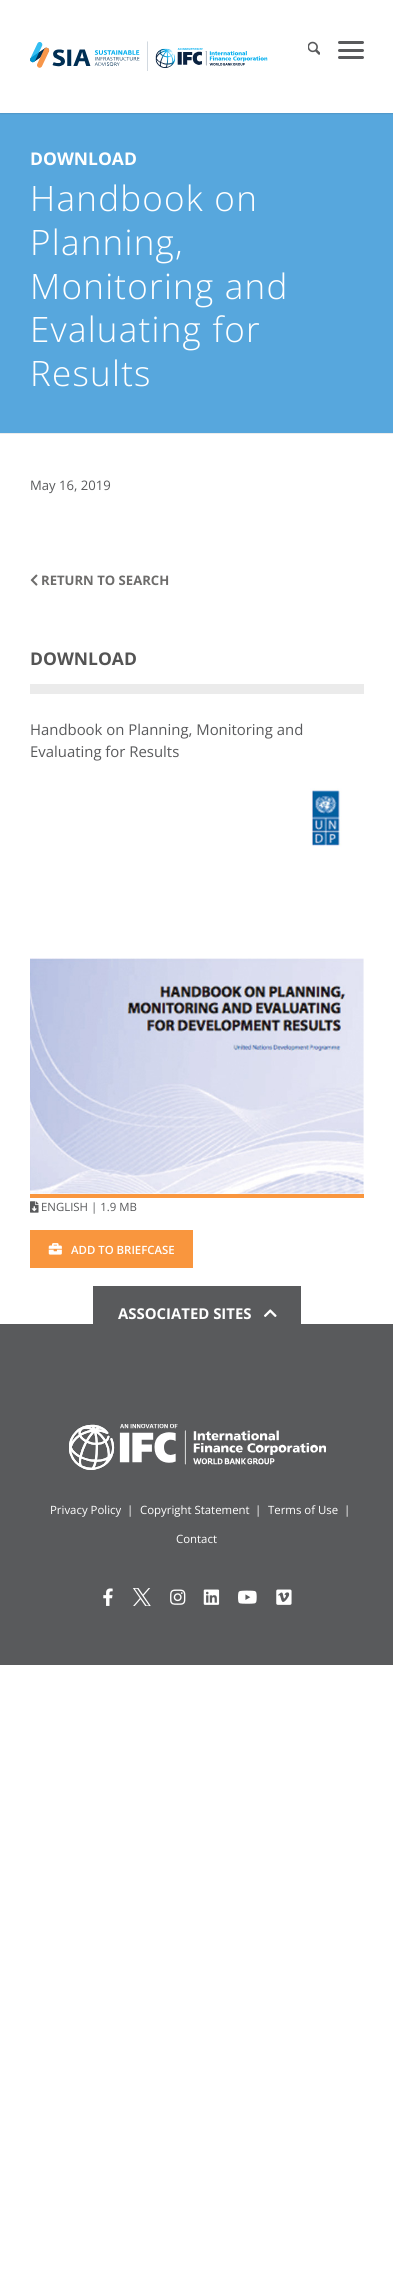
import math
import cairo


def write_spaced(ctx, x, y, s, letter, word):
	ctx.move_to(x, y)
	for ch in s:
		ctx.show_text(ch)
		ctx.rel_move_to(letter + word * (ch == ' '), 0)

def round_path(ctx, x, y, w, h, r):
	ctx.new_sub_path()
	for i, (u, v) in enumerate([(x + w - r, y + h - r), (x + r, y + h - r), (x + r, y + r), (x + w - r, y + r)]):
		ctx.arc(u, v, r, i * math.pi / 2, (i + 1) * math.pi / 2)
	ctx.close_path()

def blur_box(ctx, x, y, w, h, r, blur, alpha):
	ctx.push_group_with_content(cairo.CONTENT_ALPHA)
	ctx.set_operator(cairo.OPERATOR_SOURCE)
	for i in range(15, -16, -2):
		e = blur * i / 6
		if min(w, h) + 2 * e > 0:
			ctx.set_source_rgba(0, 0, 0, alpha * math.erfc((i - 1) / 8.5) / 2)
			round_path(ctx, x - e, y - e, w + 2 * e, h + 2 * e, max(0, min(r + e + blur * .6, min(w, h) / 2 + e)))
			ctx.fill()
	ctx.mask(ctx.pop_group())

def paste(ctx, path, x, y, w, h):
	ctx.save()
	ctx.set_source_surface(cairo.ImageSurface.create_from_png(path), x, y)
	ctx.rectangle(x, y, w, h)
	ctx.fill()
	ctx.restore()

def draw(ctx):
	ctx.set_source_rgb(1, 1, 1)
	ctx.paint()
	ctx.set_source_rgb(0.341, 0.655, 0.867)
	ctx.rectangle(0, 113, 393, 320)
	ctx.fill()
	ctx.set_source_rgb(0, 0, 0)
	blur_box(ctx, 0, 0, 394, 113, 0, 1, 0.25)
	ctx.set_source_rgb(1, 1, 1)
	ctx.rectangle(0, 0, 393, 113)
	ctx.fill()
	paste(ctx, 'media/1.png', 30, 41, 238, 30)
	paste(ctx, 'media/2.png', 308, 41, 12, 14)
	ctx.set_source_rgb(0.349, 0.353, 0.361)
	round_path(ctx, 338, 49, 26, 3, 1.5)
	ctx.fill()
	round_path(ctx, 338, 41, 26, 3, 1.5)
	ctx.fill()
	round_path(ctx, 338, 56, 26, 3, 1.5)
	ctx.fill()
	ctx.select_font_face('Open Sans', cairo.FONT_SLANT_NORMAL, cairo.FONT_WEIGHT_BOLD)
	ctx.set_font_size(17.5)
	ctx.set_source_rgb(1, 1, 1)
	ctx.move_to(30, 165)
	ctx.show_text('DOWNLOAD')
	ctx.select_font_face('Open Sans Light')
	ctx.set_font_size(35)
	for x, y, s in [
		(30, 211, 'Handbook on'),
		(30, 255, 'Planning,'),
		(30, 299, 'Monitoring and'),
		(30, 342, 'Evaluating for'),
		(30, 386, 'Results'),
	]:
		write_spaced(ctx, x, y, s, 1.25, 0)
	ctx.set_source_rgb(0.922, 0.922, 0.922)
	ctx.rectangle(0, 433, 393, 1)
	ctx.fill()
	ctx.select_font_face('Open Sans')
	ctx.set_font_size(13.1)
	ctx.set_source_rgb(0.349, 0.353, 0.361)
	ctx.move_to(30, 490)
	ctx.show_text('May 16, 2019')
	paste(ctx, 'media/3.png', 30, 574, 8, 12)
	ctx.select_font_face('Open Sans', cairo.FONT_SLANT_NORMAL, cairo.FONT_WEIGHT_BOLD)
	ctx.set_source_rgb(0.427, 0.424, 0.42)
	ctx.move_to(41, 585)
	ctx.show_text('RETURN TO SEARCH')
	ctx.set_source_rgb(0.918, 0.918, 0.918)
	ctx.rectangle(30, 684, 334, 10)
	ctx.fill()
	ctx.set_font_size(17.5)
	ctx.set_source_rgb(0.329, 0.329, 0.329)
	ctx.move_to(30, 665)
	ctx.show_text('DOWNLOAD')
	ctx.select_font_face('Open Sans')
	ctx.set_font_size(14.9)
	ctx.set_source_rgb(0.349, 0.353, 0.361)
	ctx.move_to(30, 735)
	ctx.show_text('Handbook on Planning, Monitoring and')
	ctx.move_to(30, 757)
	ctx.show_text('Evaluating for Results')
	paste(ctx, 'media/4.png', 30, 788, 334, 406)
	ctx.set_source_rgb(0.973, 0.588, 0.243)
	ctx.rectangle(30, 1194, 334, 4)
	ctx.fill()
	paste(ctx, 'media/5.png', 30, 1201, 9, 12)
	ctx.set_font_size(11.4)
	ctx.set_source_rgb(0.349, 0.353, 0.361)
	ctx.move_to(41, 1211)
	ctx.show_text('ENGLISH | 1.9 MB')
	ctx.set_source_rgb(0.973, 0.588, 0.243)
	ctx.rectangle(30, 1230, 163, 38)
	ctx.fill()
	paste(ctx, 'media/6.png', 48, 1243, 14, 12)
	ctx.select_font_face('Open Sans SemiBold')
	ctx.set_source_rgb(1, 1, 1)
	ctx.move_to(71, 1254)
	ctx.show_text('ADD TO BRIEFCASE')
	ctx.set_source_rgb(0.349, 0.353, 0.361)
	ctx.rectangle(0, 1324, 393, 341)
	ctx.fill()
	ctx.rectangle(93, 1286, 208, 38)
	ctx.fill()
	ctx.select_font_face('Open Sans', cairo.FONT_SLANT_NORMAL, cairo.FONT_WEIGHT_BOLD)
	ctx.set_font_size(14.9)
	ctx.set_source_rgb(1, 1, 1)
	ctx.move_to(118, 1319)
	ctx.show_text('ASSOCIATED SITES')
	paste(ctx, 'media/7.png', 264, 1309, 13, 8)
	paste(ctx, 'media/8.png', 69, 1424, 257, 46)
	ctx.select_font_face('Open Sans')
	ctx.set_font_size(11.4)
	for x, y, s in [
		(50, 1514, 'Privacy Policy'),
		(127, 1514, '|'),
		(140, 1514, 'Copyright Statement'),
		(255, 1514, '|'),
		(268, 1514, 'Terms of Use'),
		(344, 1514, '|'),
		(176, 1543, 'Contact'),
	]:
		ctx.move_to(x, y)
		ctx.show_text(s)
	paste(ctx, 'media/9.png', 103, 1588, 10, 18)
	paste(ctx, 'media/10.png', 133, 1588, 18, 18)
	paste(ctx, 'media/11.png', 170, 1589, 16, 16)
	paste(ctx, 'media/12.png', 203, 1589, 17, 16)
	paste(ctx, 'media/13.png', 238, 1590, 19, 14)
	paste(ctx, 'media/14.png', 276, 1589, 16, 16)


surface = cairo.ImageSurface(cairo.FORMAT_RGB24, 393, 2286)
ctx = cairo.Context(surface)
options = cairo.FontOptions()
options.set_hint_metrics(cairo.HINT_METRICS_OFF)
options.set_hint_style(cairo.HINT_STYLE_NONE)
ctx.set_font_options(options)
ctx.set_miter_limit(4)
draw(ctx)
surface.write_to_png('image.png')
